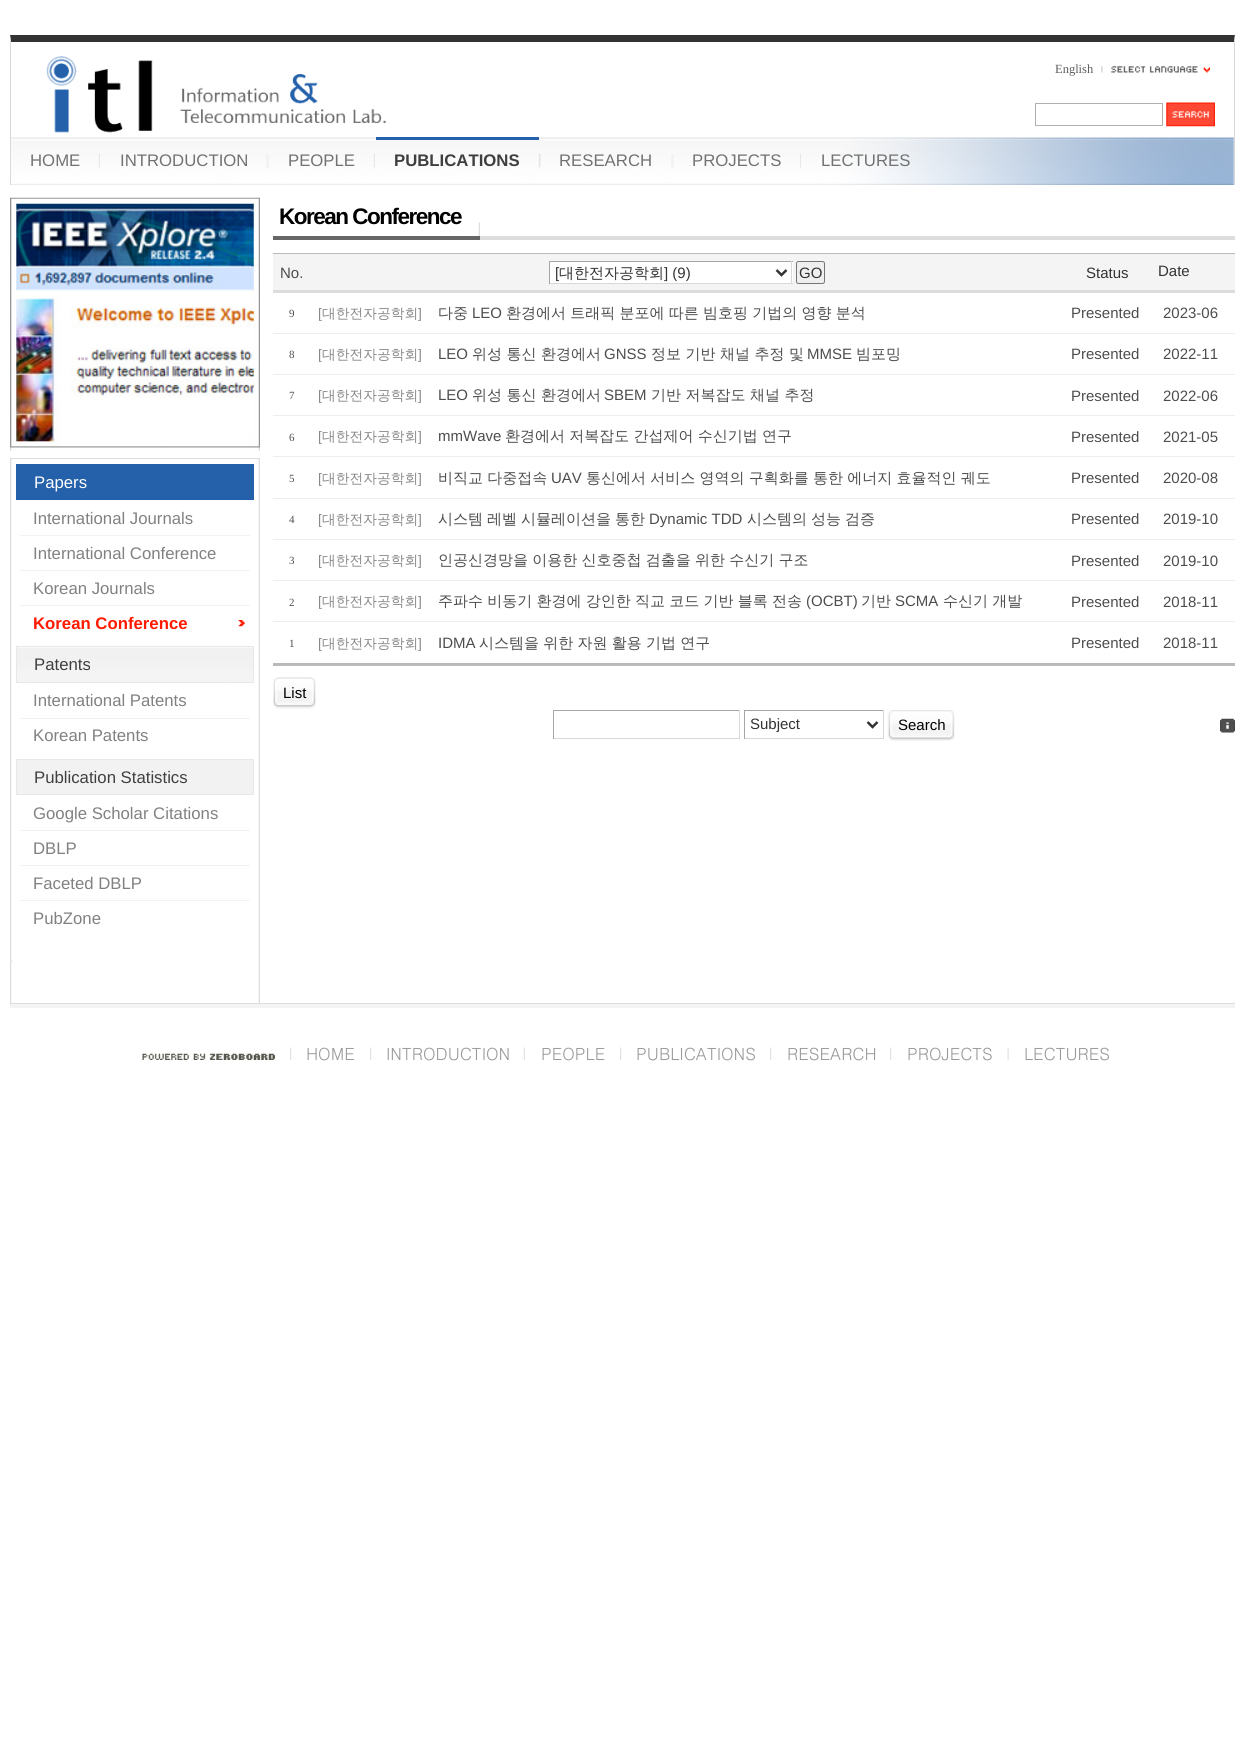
import math
import cairo


def write_spaced(ctx, x, y, s, letter, word):
	ctx.move_to(x, y)
	for ch in s:
		ctx.show_text(ch)
		ctx.rel_move_to(letter + word * (ch == ' '), 0)

def round_path(ctx, x, y, w, h, r):
	ctx.new_sub_path()
	for i, (u, v) in enumerate([(x + w - r, y + h - r), (x + r, y + h - r), (x + r, y + r), (x + w - r, y + r)]):
		ctx.arc(u, v, r, i * math.pi / 2, (i + 1) * math.pi / 2)
	ctx.close_path()

def paste(ctx, path, x, y, w, h):
	ctx.save()
	ctx.set_source_surface(cairo.ImageSurface.create_from_png(path), x, y)
	ctx.rectangle(x, y, w, h)
	ctx.fill()
	ctx.restore()

def draw(ctx):
	ctx.set_source_rgb(1, 1, 1)
	ctx.paint()
	paste(ctx, 'media/1.png', 11, 137, 1223, 48)
	ctx.set_source_rgb(0.196, 0.196, 0.196)
	ctx.new_path()
	ctx.move_to(10, 35)
	ctx.line_to(1235, 35)
	ctx.line_to(1234, 42)
	ctx.line_to(11, 42)
	ctx.close_path()
	ctx.fill()
	ctx.set_source_rgb(0.851, 0.851, 0.851)
	ctx.new_path()
	ctx.move_to(1235, 35)
	ctx.line_to(1235, 185)
	ctx.line_to(1234, 185)
	ctx.line_to(1234, 42)
	ctx.close_path()
	ctx.fill()
	ctx.new_path()
	ctx.move_to(10, 185)
	ctx.line_to(10, 35)
	ctx.line_to(11, 42)
	ctx.line_to(11, 185)
	ctx.close_path()
	ctx.fill()
	paste(ctx, 'media/2.png', 46, 56, 341, 77)
	ctx.select_font_face('Liberation Serif')
	ctx.set_font_size(12.5)
	ctx.set_source_rgb(0.361, 0.361, 0.361)
	ctx.move_to(1055, 73)
	ctx.show_text('English')
	paste(ctx, 'media/3.png', 1101, 66, 109, 7)
	ctx.rectangle(1035.5, 103.5, 127, 22)
	ctx.set_source_rgb(0.69, 0.69, 0.686)
	ctx.set_line_width(1)
	ctx.stroke()
	paste(ctx, 'media/4.png', 1166, 102, 49, 25)
	ctx.select_font_face('Liberation Sans')
	ctx.set_font_size(16.75)
	ctx.set_source_rgb(0.447, 0.447, 0.447)
	ctx.move_to(30, 166)
	ctx.show_text('HOME')
	paste(ctx, 'media/5.png', 98, 153, 2, 15)
	ctx.move_to(120, 166)
	ctx.show_text('INTRODUCTION')
	ctx.set_source_rgb(0.953, 0.953, 0.953)
	ctx.rectangle(266, 154, 3, 14)
	ctx.fill()
	ctx.set_source_rgb(0.447, 0.447, 0.447)
	ctx.move_to(288, 166)
	ctx.show_text('PEOPLE')
	paste(ctx, 'media/6.png', 373, 153, 2, 15)
	ctx.set_source_rgb(0.141, 0.38, 0.667)
	ctx.rectangle(376, 137, 163, 3)
	ctx.fill()
	ctx.select_font_face('Liberation Sans', cairo.FONT_SLANT_NORMAL, cairo.FONT_WEIGHT_BOLD)
	ctx.set_source_rgb(0.247, 0.247, 0.247)
	ctx.move_to(394, 166)
	ctx.show_text('PUBLICATIONS')
	paste(ctx, 'media/7.png', 538, 153, 3, 15)
	ctx.select_font_face('Liberation Sans')
	ctx.set_source_rgb(0.447, 0.447, 0.447)
	ctx.move_to(559, 166)
	ctx.show_text('RESEARCH')
	ctx.set_source_rgb(0.953, 0.953, 0.953)
	ctx.rectangle(671, 154, 3, 14)
	ctx.fill()
	ctx.set_source_rgb(0.447, 0.447, 0.447)
	ctx.move_to(692, 166)
	ctx.show_text('PROJECTS')
	paste(ctx, 'media/8.png', 800, 153, 1, 15)
	ctx.move_to(821, 166)
	ctx.show_text('LECTURES')
	paste(ctx, 'media/9.png', 10, 197, 250, 806)
	ctx.set_source_rgb(0.867, 0.867, 0.867)
	ctx.rectangle(10, 1003, 1225, 1)
	ctx.fill()
	paste(ctx, 'media/10.png', 10, 197, 250, 251)
	ctx.set_source_rgb(1, 1, 1)
	ctx.rectangle(10, 451, 251, 7)
	ctx.fill()
	ctx.set_source_rgb(0.867, 0.867, 0.867)
	ctx.rectangle(10, 458, 250, 1)
	ctx.fill()
	ctx.set_source_rgb(0.141, 0.38, 0.667)
	ctx.rectangle(16, 464, 238, 36)
	ctx.fill()
	ctx.set_source_rgb(1, 1, 1)
	ctx.move_to(34, 488)
	ctx.show_text('Papers')
	ctx.set_source_rgb(0.506, 0.506, 0.506)
	ctx.move_to(33, 524)
	ctx.show_text('International Journals')
	ctx.set_source_rgb(0.949, 0.949, 0.949)
	ctx.rectangle(20, 535, 230, 1)
	ctx.fill()
	ctx.set_source_rgb(0.506, 0.506, 0.506)
	ctx.move_to(33, 559)
	ctx.show_text('International Conference')
	ctx.set_source_rgb(0.949, 0.949, 0.949)
	ctx.rectangle(20, 570, 230, 1)
	ctx.fill()
	ctx.set_source_rgb(0.506, 0.506, 0.506)
	ctx.move_to(33, 594)
	ctx.show_text('Korean Journals')
	ctx.set_source_rgb(0.949, 0.949, 0.949)
	ctx.rectangle(20, 605, 230, 1)
	ctx.fill()
	paste(ctx, 'media/11.png', 238, 620, 7, 7)
	ctx.select_font_face('Liberation Sans', cairo.FONT_SLANT_NORMAL, cairo.FONT_WEIGHT_BOLD)
	ctx.set_source_rgb(1, 0.102, 0)
	ctx.move_to(33, 629)
	ctx.show_text('Korean Conference')
	paste(ctx, 'media/12.png', 17, 647, 236, 35)
	ctx.rectangle(16.5, 646.5, 237, 36)
	ctx.set_source_rgb(0.91, 0.91, 0.91)
	ctx.stroke()
	ctx.select_font_face('Liberation Sans')
	ctx.set_source_rgb(0.247, 0.247, 0.247)
	ctx.move_to(34, 670)
	ctx.show_text('Patents')
	ctx.set_source_rgb(0.506, 0.506, 0.506)
	ctx.move_to(33, 706)
	ctx.show_text('International Patents')
	ctx.set_source_rgb(0.949, 0.949, 0.949)
	ctx.rectangle(20, 718, 230, 1)
	ctx.fill()
	ctx.set_source_rgb(0.506, 0.506, 0.506)
	ctx.move_to(33, 741)
	ctx.show_text('Korean Patents')
	ctx.set_source_rgb(0.949, 0.949, 0.949)
	ctx.rectangle(16.5, 759.5, 237, 35)
	ctx.fill_preserve()
	ctx.set_source_rgb(0.91, 0.91, 0.91)
	ctx.stroke()
	ctx.set_source_rgb(0.247, 0.247, 0.247)
	ctx.move_to(34, 783)
	ctx.show_text('Publication Statistics')
	ctx.set_source_rgb(0.506, 0.506, 0.506)
	ctx.move_to(33, 819)
	ctx.show_text('Google Scholar Citations')
	ctx.set_source_rgb(0.949, 0.949, 0.949)
	ctx.rectangle(20, 830, 230, 1)
	ctx.fill()
	ctx.set_source_rgb(0.506, 0.506, 0.506)
	ctx.move_to(33, 854)
	ctx.show_text('DBLP')
	ctx.set_source_rgb(0.949, 0.949, 0.949)
	ctx.rectangle(20, 865, 230, 1)
	ctx.fill()
	ctx.set_source_rgb(0.506, 0.506, 0.506)
	ctx.move_to(33, 889)
	ctx.show_text('Faceted DBLP')
	ctx.set_source_rgb(0.949, 0.949, 0.949)
	ctx.rectangle(20, 900, 230, 1)
	ctx.fill()
	ctx.set_source_rgb(0.506, 0.506, 0.506)
	ctx.move_to(33, 924)
	ctx.show_text('PubZone')
	paste(ctx, 'media/13.png', 10, 960, 2, 2)
	ctx.set_source_rgb(0.867, 0.867, 0.867)
	ctx.rectangle(480, 236, 755, 4)
	ctx.fill()
	paste(ctx, 'media/14.png', 478, 222, 2, 14)
	ctx.set_source_rgb(0.4, 0.4, 0.4)
	ctx.rectangle(273, 236, 207, 4)
	ctx.fill()
	ctx.select_font_face('Liberation Sans', cairo.FONT_SLANT_NORMAL, cairo.FONT_WEIGHT_BOLD)
	ctx.set_font_size(22.5)
	ctx.set_source_rgb(0, 0, 0)
	write_spaced(ctx, 279, 224, 'Korean Conference', -1.5, 0)
	ctx.set_source_rgb(0.729, 0.729, 0.729)
	ctx.rectangle(273, 253, 962, 1)
	ctx.fill()
	ctx.set_source_rgb(0.957, 0.957, 0.957)
	ctx.rectangle(273, 254, 962, 36)
	ctx.fill()
	ctx.set_source_rgb(0.863, 0.863, 0.863)
	ctx.rectangle(273, 290, 962, 3)
	ctx.fill()
	ctx.select_font_face('Liberation Sans')
	ctx.set_font_size(15)
	ctx.set_source_rgb(0.302, 0.302, 0.302)
	ctx.move_to(280, 278)
	ctx.show_text('No.')
	ctx.set_source_rgb(1, 1, 1)
	ctx.rectangle(550, 262, 243, 21)
	ctx.fill()
	ctx.set_source_rgb(0.651, 0.651, 0.651)
	ctx.rectangle(549, 261, 244, 1)
	ctx.fill()
	ctx.set_source_rgb(0.847, 0.847, 0.847)
	ctx.rectangle(791, 261, 1, 23)
	ctx.rectangle(549, 283, 244, 1)
	ctx.fill()
	ctx.set_source_rgb(0.651, 0.651, 0.651)
	ctx.rectangle(549, 261, 1, 23)
	ctx.fill()
	ctx.new_path()
	ctx.move_to(776.5, 270)
	ctx.line_to(781.5, 275)
	ctx.line_to(786.5, 270)
	ctx.set_source_rgb(0.2, 0.2, 0.2)
	ctx.set_line_width(2.5)
	ctx.stroke()
	ctx.move_to(555, 278)
	ctx.show_text('[')
	ctx.select_font_face('WenQuanYi Zen Hei Medium')
	ctx.move_to(559, 278)
	ctx.show_text('대한전자공학회')
	ctx.select_font_face('Liberation Sans')
	ctx.move_to(664, 278)
	ctx.show_text('] (9)')
	ctx.set_source_rgb(0.937, 0.937, 0.937)
	round_path(ctx, 796.5, 261.5, 28, 22, 2)
	ctx.fill_preserve()
	ctx.set_source_rgb(0.463, 0.463, 0.463)
	ctx.set_line_width(1)
	ctx.stroke()
	ctx.set_source_rgb(0.2, 0.2, 0.2)
	for x, y, s in [
		(799, 278, 'GO'),
		(1086, 278, 'Status'),
		(1158, 276, 'Date'),
	]:
		ctx.move_to(x, y)
		ctx.show_text(s)
	ctx.set_source_rgb(0.933, 0.933, 0.933)
	ctx.rectangle(273, 333, 962, 1)
	ctx.fill()
	ctx.select_font_face('Liberation Serif')
	ctx.set_font_size(11)
	ctx.set_source_rgb(0.302, 0.302, 0.302)
	ctx.move_to(289, 317)
	ctx.show_text('9')
	ctx.select_font_face('Liberation Sans')
	ctx.set_font_size(13.75)
	ctx.set_source_rgb(0.533, 0.533, 0.533)
	ctx.move_to(318, 318)
	ctx.show_text('[')
	ctx.select_font_face('WenQuanYi Zen Hei Medium')
	ctx.move_to(322, 318)
	ctx.show_text('대한전자공학회')
	ctx.select_font_face('Liberation Sans')
	ctx.move_to(418, 318)
	ctx.show_text(']')
	ctx.select_font_face('WenQuanYi Zen Hei Medium')
	ctx.set_font_size(15)
	ctx.set_source_rgb(0.302, 0.302, 0.302)
	ctx.move_to(438, 318)
	ctx.show_text('다중')
	ctx.select_font_face('Liberation Sans')
	ctx.move_to(472, 318)
	ctx.show_text('LEO')
	ctx.select_font_face('WenQuanYi Zen Hei Medium')
	write_spaced(ctx, 506, 318, '환경에서 트래픽 분포에 따른 빔호핑 기법의 영향 분석', 0, -0.25)
	ctx.select_font_face('Liberation Sans')
	ctx.move_to(1071, 318)
	ctx.show_text('Presented')
	ctx.move_to(1163, 318)
	ctx.show_text('2023-06')
	ctx.set_source_rgb(0.933, 0.933, 0.933)
	ctx.rectangle(273, 374, 962, 1)
	ctx.fill()
	ctx.select_font_face('Liberation Serif')
	ctx.set_font_size(11)
	ctx.set_source_rgb(0.302, 0.302, 0.302)
	ctx.move_to(289, 358)
	ctx.show_text('8')
	ctx.select_font_face('Liberation Sans')
	ctx.set_font_size(13.75)
	ctx.set_source_rgb(0.533, 0.533, 0.533)
	ctx.move_to(318, 359)
	ctx.show_text('[')
	ctx.select_font_face('WenQuanYi Zen Hei Medium')
	ctx.move_to(322, 359)
	ctx.show_text('대한전자공학회')
	ctx.select_font_face('Liberation Sans')
	ctx.move_to(418, 359)
	ctx.show_text(']')
	ctx.set_font_size(15)
	ctx.set_source_rgb(0.302, 0.302, 0.302)
	ctx.move_to(438, 359)
	ctx.show_text('LEO')
	ctx.select_font_face('WenQuanYi Zen Hei Medium')
	ctx.move_to(472, 359)
	ctx.show_text('위성 통신 환경에서')
	ctx.select_font_face('Liberation Sans')
	ctx.move_to(604, 359)
	ctx.show_text('GNSS')
	ctx.select_font_face('WenQuanYi Zen Hei Medium')
	ctx.move_to(651, 359)
	ctx.show_text('정보 기반 채널 추정 및')
	ctx.select_font_face('Liberation Sans')
	ctx.move_to(807, 359)
	ctx.show_text('MMSE')
	ctx.select_font_face('WenQuanYi Zen Hei Medium')
	ctx.move_to(856, 359)
	ctx.show_text('빔포밍')
	ctx.select_font_face('Liberation Sans')
	ctx.move_to(1071, 359)
	ctx.show_text('Presented')
	ctx.move_to(1163, 359)
	ctx.show_text('2022-11')
	ctx.set_source_rgb(0.933, 0.933, 0.933)
	ctx.rectangle(273, 415, 962, 1)
	ctx.fill()
	ctx.select_font_face('Liberation Serif')
	ctx.set_font_size(11)
	ctx.set_source_rgb(0.302, 0.302, 0.302)
	ctx.move_to(289, 399)
	ctx.show_text('7')
	ctx.select_font_face('Liberation Sans')
	ctx.set_font_size(13.75)
	ctx.set_source_rgb(0.533, 0.533, 0.533)
	ctx.move_to(318, 400)
	ctx.show_text('[')
	ctx.select_font_face('WenQuanYi Zen Hei Medium')
	ctx.move_to(322, 400)
	ctx.show_text('대한전자공학회')
	ctx.select_font_face('Liberation Sans')
	ctx.move_to(418, 400)
	ctx.show_text(']')
	ctx.set_font_size(15)
	ctx.set_source_rgb(0.302, 0.302, 0.302)
	ctx.move_to(438, 400)
	ctx.show_text('LEO')
	ctx.select_font_face('WenQuanYi Zen Hei Medium')
	ctx.move_to(472, 400)
	ctx.show_text('위성 통신 환경에서')
	ctx.select_font_face('Liberation Sans')
	ctx.move_to(604, 400)
	ctx.show_text('SBEM')
	ctx.select_font_face('WenQuanYi Zen Hei Medium')
	ctx.move_to(651, 400)
	ctx.show_text('기반 저복잡도 채널 추정')
	ctx.select_font_face('Liberation Sans')
	ctx.move_to(1071, 401)
	ctx.show_text('Presented')
	ctx.move_to(1163, 401)
	ctx.show_text('2022-06')
	ctx.set_source_rgb(0.933, 0.933, 0.933)
	ctx.rectangle(273, 456, 962, 1)
	ctx.fill()
	ctx.select_font_face('Liberation Serif')
	ctx.set_font_size(11)
	ctx.set_source_rgb(0.302, 0.302, 0.302)
	ctx.move_to(289, 441)
	ctx.show_text('6')
	ctx.select_font_face('Liberation Sans')
	ctx.set_font_size(13.75)
	ctx.set_source_rgb(0.533, 0.533, 0.533)
	ctx.move_to(318, 441)
	ctx.show_text('[')
	ctx.select_font_face('WenQuanYi Zen Hei Medium')
	ctx.move_to(322, 441)
	ctx.show_text('대한전자공학회')
	ctx.select_font_face('Liberation Sans')
	ctx.move_to(418, 441)
	ctx.show_text(']')
	ctx.set_font_size(15)
	ctx.set_source_rgb(0.302, 0.302, 0.302)
	ctx.move_to(438, 441)
	ctx.show_text('mmWave')
	ctx.select_font_face('WenQuanYi Zen Hei Medium')
	write_spaced(ctx, 505, 441, '환경에서 저복잡도 간섭제어 수신기법 연구', 0, -0.25)
	ctx.select_font_face('Liberation Sans')
	ctx.move_to(1071, 442)
	ctx.show_text('Presented')
	ctx.move_to(1163, 442)
	ctx.show_text('2021-05')
	ctx.set_source_rgb(0.933, 0.933, 0.933)
	ctx.rectangle(273, 498, 962, 1)
	ctx.fill()
	ctx.select_font_face('Liberation Serif')
	ctx.set_font_size(11)
	ctx.set_source_rgb(0.302, 0.302, 0.302)
	ctx.move_to(289, 482)
	ctx.show_text('5')
	ctx.select_font_face('Liberation Sans')
	ctx.set_font_size(13.75)
	ctx.set_source_rgb(0.533, 0.533, 0.533)
	ctx.move_to(318, 483)
	ctx.show_text('[')
	ctx.select_font_face('WenQuanYi Zen Hei Medium')
	ctx.move_to(322, 483)
	ctx.show_text('대한전자공학회')
	ctx.select_font_face('Liberation Sans')
	ctx.move_to(418, 483)
	ctx.show_text(']')
	ctx.select_font_face('WenQuanYi Zen Hei Medium')
	ctx.set_font_size(15)
	ctx.set_source_rgb(0.302, 0.302, 0.302)
	write_spaced(ctx, 438, 483, '비직교 다중접속', 0, -0.25)
	ctx.select_font_face('Liberation Sans')
	ctx.move_to(551, 483)
	ctx.show_text('UAV')
	ctx.select_font_face('WenQuanYi Zen Hei Medium')
	write_spaced(ctx, 586, 483, '통신에서 서비스 영역의 구획화를 통한 에너지 효율적인 궤도', 0, -0.25)
	ctx.select_font_face('Liberation Sans')
	ctx.move_to(1071, 483)
	ctx.show_text('Presented')
	ctx.move_to(1163, 483)
	ctx.show_text('2020-08')
	ctx.set_source_rgb(0.933, 0.933, 0.933)
	ctx.rectangle(273, 539, 962, 1)
	ctx.fill()
	ctx.select_font_face('Liberation Serif')
	ctx.set_font_size(11)
	ctx.set_source_rgb(0.302, 0.302, 0.302)
	ctx.move_to(289, 523)
	ctx.show_text('4')
	ctx.select_font_face('Liberation Sans')
	ctx.set_font_size(13.75)
	ctx.set_source_rgb(0.533, 0.533, 0.533)
	ctx.move_to(318, 524)
	ctx.show_text('[')
	ctx.select_font_face('WenQuanYi Zen Hei Medium')
	ctx.move_to(322, 524)
	ctx.show_text('대한전자공학회')
	ctx.select_font_face('Liberation Sans')
	ctx.move_to(418, 524)
	ctx.show_text(']')
	ctx.select_font_face('WenQuanYi Zen Hei Medium')
	ctx.set_font_size(15)
	ctx.set_source_rgb(0.302, 0.302, 0.302)
	for x, y, s in [
		(438, 524, '시스템'),
		(487, 524, '레벨'),
		(521, 524, '시뮬레이션을'),
		(615, 524, '통한'),
	]:
		ctx.move_to(x, y)
		ctx.show_text(s)
	ctx.select_font_face('Liberation Sans')
	ctx.move_to(649, 524)
	ctx.show_text('Dynamic TDD')
	ctx.select_font_face('WenQuanYi Zen Hei Medium')
	for x, y, s in [
		(747, 524, '시스템의'),
		(811, 524, '성능'),
		(845, 524, '검증'),
	]:
		ctx.move_to(x, y)
		ctx.show_text(s)
	ctx.select_font_face('Liberation Sans')
	ctx.move_to(1071, 524)
	ctx.show_text('Presented')
	ctx.move_to(1163, 524)
	ctx.show_text('2019-10')
	ctx.set_source_rgb(0.933, 0.933, 0.933)
	ctx.rectangle(273, 580, 962, 1)
	ctx.fill()
	ctx.select_font_face('Liberation Serif')
	ctx.set_font_size(11)
	ctx.set_source_rgb(0.302, 0.302, 0.302)
	ctx.move_to(289, 564)
	ctx.show_text('3')
	ctx.select_font_face('Liberation Sans')
	ctx.set_font_size(13.75)
	ctx.set_source_rgb(0.533, 0.533, 0.533)
	ctx.move_to(318, 565)
	ctx.show_text('[')
	ctx.select_font_face('WenQuanYi Zen Hei Medium')
	ctx.move_to(322, 565)
	ctx.show_text('대한전자공학회')
	ctx.select_font_face('Liberation Sans')
	ctx.move_to(418, 565)
	ctx.show_text(']')
	ctx.select_font_face('WenQuanYi Zen Hei Medium')
	ctx.set_font_size(15)
	ctx.set_source_rgb(0.302, 0.302, 0.302)
	write_spaced(ctx, 438, 565, '인공신경망을 이용한 신호중첩 검출을 위한 수신기 구조', 0, -0.25)
	ctx.select_font_face('Liberation Sans')
	ctx.move_to(1071, 566)
	ctx.show_text('Presented')
	ctx.move_to(1163, 566)
	ctx.show_text('2019-10')
	ctx.set_source_rgb(0.933, 0.933, 0.933)
	ctx.rectangle(273, 621, 962, 1)
	ctx.fill()
	ctx.select_font_face('Liberation Serif')
	ctx.set_font_size(11)
	ctx.set_source_rgb(0.302, 0.302, 0.302)
	ctx.move_to(289, 606)
	ctx.show_text('2')
	ctx.select_font_face('Liberation Sans')
	ctx.set_font_size(13.75)
	ctx.set_source_rgb(0.533, 0.533, 0.533)
	ctx.move_to(318, 606)
	ctx.show_text('[')
	ctx.select_font_face('WenQuanYi Zen Hei Medium')
	ctx.move_to(322, 606)
	ctx.show_text('대한전자공학회')
	ctx.select_font_face('Liberation Sans')
	ctx.move_to(418, 606)
	ctx.show_text(']')
	ctx.select_font_face('WenQuanYi Zen Hei Medium')
	ctx.set_font_size(15)
	ctx.set_source_rgb(0.302, 0.302, 0.302)
	write_spaced(ctx, 438, 606, '주파수 비동기 환경에 강인한 직교 코드 기반 블록 전송', 0, -0.25)
	ctx.select_font_face('Liberation Sans')
	ctx.move_to(806, 606)
	ctx.show_text('(OCBT)')
	ctx.select_font_face('WenQuanYi Zen Hei Medium')
	ctx.move_to(861, 606)
	ctx.show_text('기반')
	ctx.select_font_face('Liberation Sans')
	ctx.move_to(895, 606)
	ctx.show_text('SCMA')
	ctx.select_font_face('WenQuanYi Zen Hei Medium')
	write_spaced(ctx, 943, 606, '수신기 개발', 0, -0.25)
	ctx.select_font_face('Liberation Sans')
	ctx.move_to(1071, 607)
	ctx.show_text('Presented')
	ctx.move_to(1163, 607)
	ctx.show_text('2018-11')
	ctx.select_font_face('Liberation Serif')
	ctx.set_font_size(11)
	ctx.move_to(289, 647)
	ctx.show_text('1')
	ctx.select_font_face('Liberation Sans')
	ctx.set_font_size(13.75)
	ctx.set_source_rgb(0.533, 0.533, 0.533)
	ctx.move_to(318, 648)
	ctx.show_text('[')
	ctx.select_font_face('WenQuanYi Zen Hei Medium')
	ctx.move_to(322, 648)
	ctx.show_text('대한전자공학회')
	ctx.select_font_face('Liberation Sans')
	ctx.move_to(418, 648)
	ctx.show_text(']')
	ctx.set_font_size(15)
	ctx.set_source_rgb(0.302, 0.302, 0.302)
	ctx.move_to(438, 648)
	ctx.show_text('IDMA')
	ctx.select_font_face('WenQuanYi Zen Hei Medium')
	write_spaced(ctx, 479, 648, '시스템을 위한 자원 활용 기법 연구', 0, -0.25)
	ctx.select_font_face('Liberation Sans')
	ctx.move_to(1071, 648)
	ctx.show_text('Presented')
	ctx.move_to(1163, 648)
	ctx.show_text('2018-11')
	ctx.set_source_rgb(0.729, 0.729, 0.729)
	ctx.rectangle(273, 663, 962, 3)
	ctx.fill()
	paste(ctx, 'media/15.png', 273, 677, 39, 32)
	paste(ctx, 'media/16.png', 277, 677, 39, 32)
	ctx.set_source_rgb(0, 0, 0)
	ctx.move_to(283, 698)
	ctx.show_text('List')
	ctx.set_source_rgb(0.651, 0.651, 0.651)
	ctx.rectangle(553, 710, 187, 1)
	ctx.fill()
	ctx.set_source_rgb(0.847, 0.847, 0.847)
	ctx.rectangle(739, 710, 1, 29)
	ctx.rectangle(553, 738, 187, 1)
	ctx.fill()
	ctx.set_source_rgb(0.651, 0.651, 0.651)
	ctx.rectangle(553, 710, 1, 29)
	ctx.rectangle(744, 710, 140, 1)
	ctx.fill()
	ctx.set_source_rgb(0.847, 0.847, 0.847)
	ctx.rectangle(883, 710, 1, 29)
	ctx.rectangle(744, 738, 140, 1)
	ctx.fill()
	ctx.set_source_rgb(0.651, 0.651, 0.651)
	ctx.rectangle(744, 710, 1, 29)
	ctx.fill()
	ctx.new_path()
	ctx.move_to(867.5, 722)
	ctx.line_to(872.5, 727)
	ctx.line_to(877.5, 722)
	ctx.set_source_rgb(0.2, 0.2, 0.2)
	ctx.set_line_width(2.5)
	ctx.stroke()
	ctx.move_to(750, 729)
	ctx.show_text('Subject')
	paste(ctx, 'media/17.png', 887, 710, 63, 31)
	paste(ctx, 'media/18.png', 950, 710, 5, 31)
	ctx.set_source_rgb(0, 0, 0)
	ctx.move_to(898, 730)
	ctx.show_text('Search')
	paste(ctx, 'media/19.png', 1220, 718, 15, 15)
	ctx.set_source_rgb(0.957, 0.957, 0.957)
	ctx.rectangle(10, 1004, 1225, 4)
	ctx.fill()
	paste(ctx, 'media/20.png', 142, 1053, 133, 7)
	paste(ctx, 'media/21.png', 290, 1047, 2, 13)
	ctx.select_font_face('Dotum')
	ctx.set_font_size(16.75)
	ctx.set_source_rgb(0.6, 0.6, 0.6)
	ctx.move_to(306, 1060)
	ctx.show_text('HOME')
	paste(ctx, 'media/21.png', 370, 1047, 2, 13)
	ctx.move_to(386, 1060)
	ctx.show_text('INTRODUCTION')
	paste(ctx, 'media/22.png', 523, 1047, 2, 13)
	ctx.move_to(541, 1060)
	ctx.show_text('PEOPLE')
	paste(ctx, 'media/21.png', 620, 1047, 2, 13)
	ctx.move_to(636, 1060)
	ctx.show_text('PUBLICATIONS')
	paste(ctx, 'media/21.png', 770, 1047, 2, 13)
	ctx.move_to(787, 1060)
	ctx.show_text('RESEARCH')
	paste(ctx, 'media/21.png', 890, 1047, 2, 13)
	ctx.move_to(907, 1060)
	ctx.show_text('PROJECTS')
	paste(ctx, 'media/23.png', 1007, 1047, 2, 13)
	ctx.move_to(1024, 1060)
	ctx.show_text('LECTURES')


surface = cairo.ImageSurface(cairo.FORMAT_RGB24, 1245, 1747)
ctx = cairo.Context(surface)
options = cairo.FontOptions()
options.set_hint_metrics(cairo.HINT_METRICS_OFF)
options.set_hint_style(cairo.HINT_STYLE_NONE)
ctx.set_font_options(options)
ctx.set_miter_limit(4)
draw(ctx)
surface.write_to_png('image.png')
